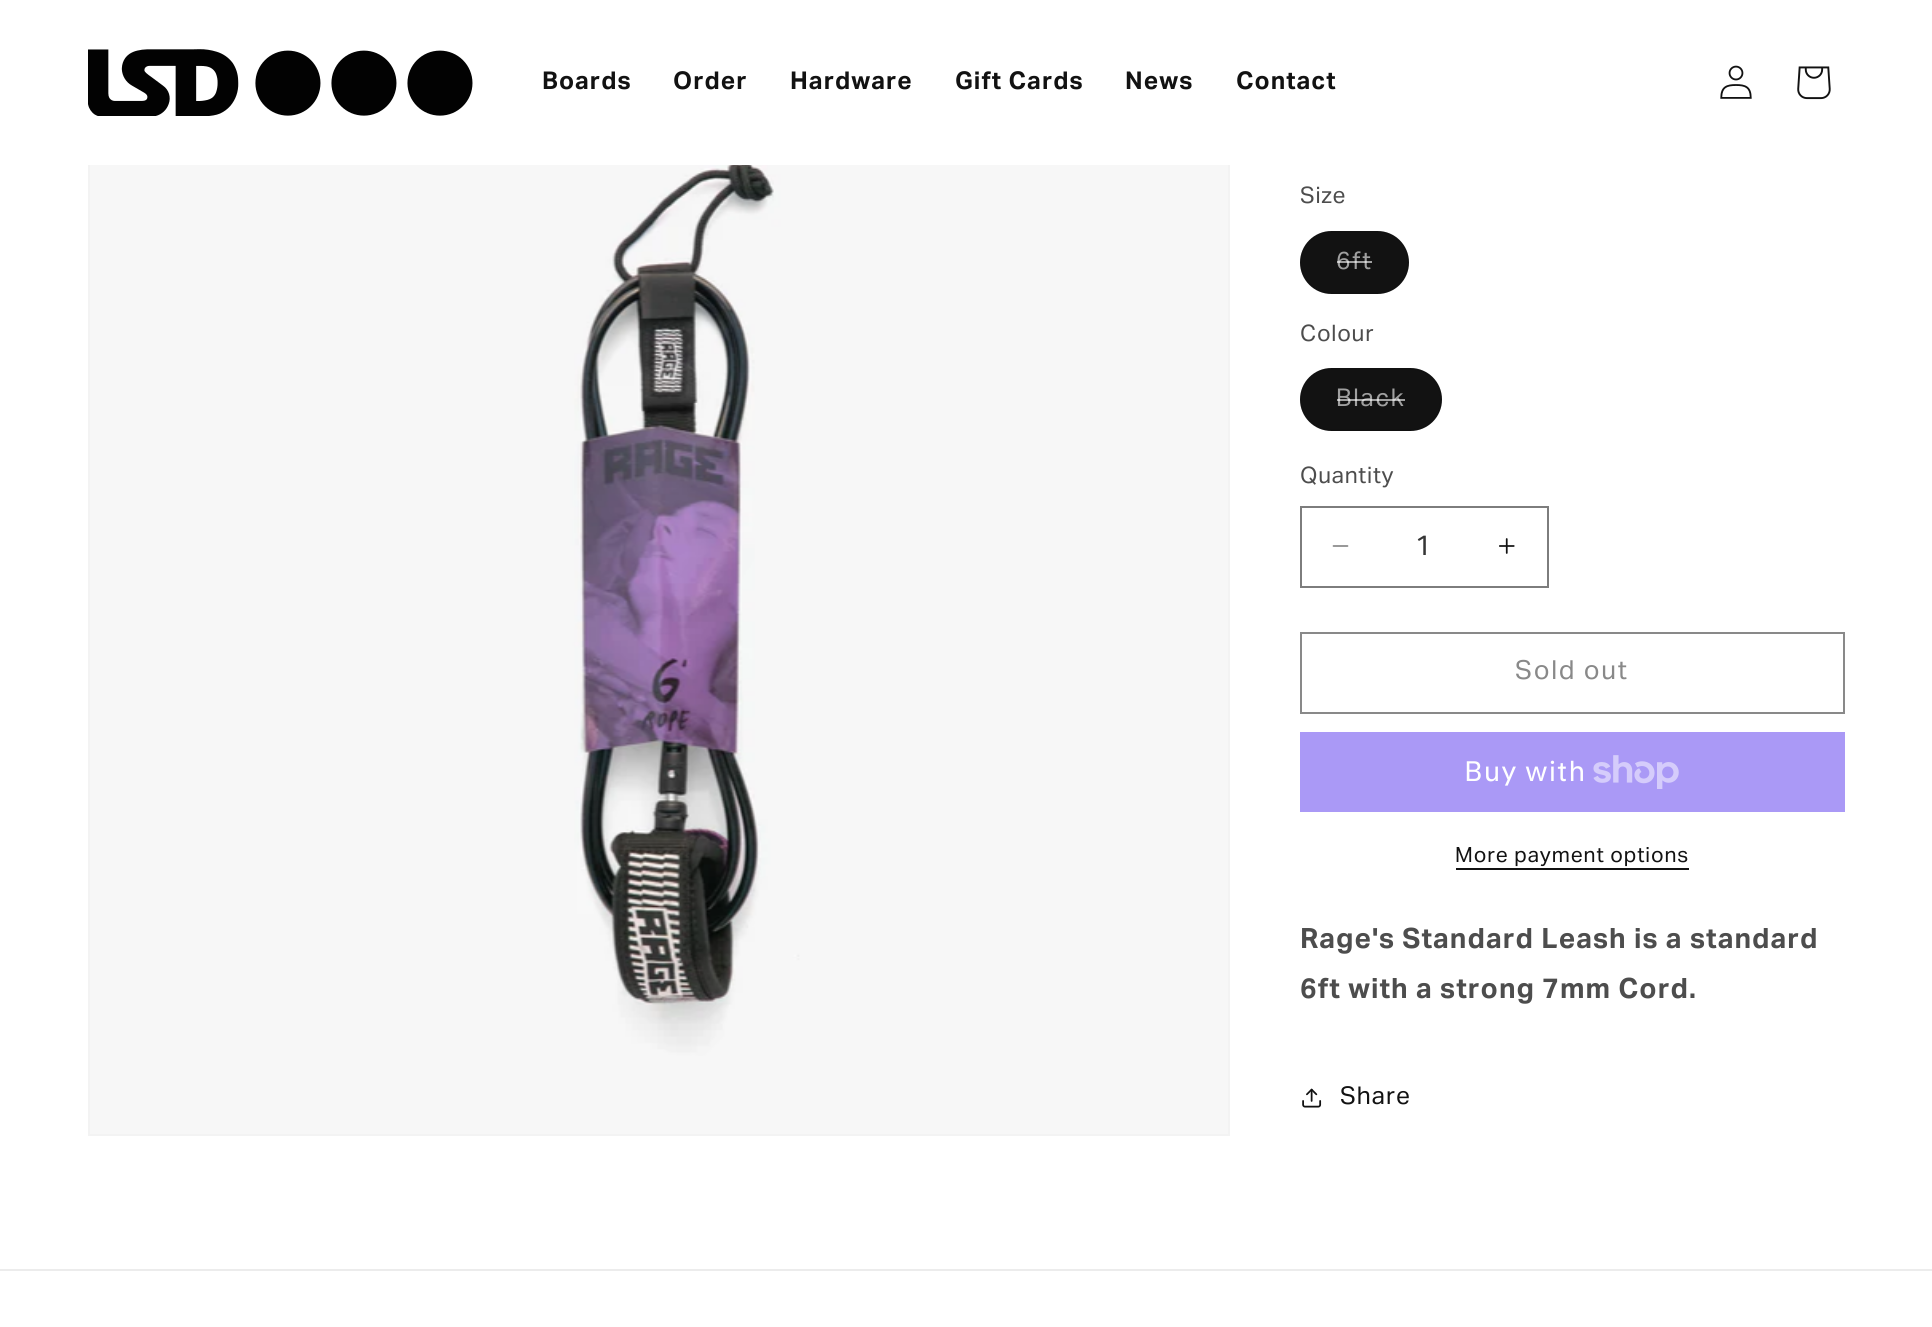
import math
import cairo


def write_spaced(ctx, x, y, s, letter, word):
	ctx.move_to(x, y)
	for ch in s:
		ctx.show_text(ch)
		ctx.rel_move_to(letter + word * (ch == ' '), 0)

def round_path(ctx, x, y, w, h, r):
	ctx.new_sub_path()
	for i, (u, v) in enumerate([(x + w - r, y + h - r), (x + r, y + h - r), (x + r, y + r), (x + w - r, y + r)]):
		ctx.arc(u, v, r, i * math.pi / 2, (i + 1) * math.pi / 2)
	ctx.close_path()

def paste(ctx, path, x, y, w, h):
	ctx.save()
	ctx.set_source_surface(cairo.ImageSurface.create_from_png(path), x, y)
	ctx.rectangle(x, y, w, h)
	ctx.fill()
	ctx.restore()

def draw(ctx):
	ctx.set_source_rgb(1, 1, 1)
	ctx.paint()
	ctx.rectangle(89, -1, 1140, 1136)
	ctx.set_source_rgb(0.953, 0.953, 0.953)
	ctx.stroke()
	ctx.set_source_rgb(1, 1, 1)
	ctx.rectangle(88, 0, 1142, 165)
	ctx.fill()
	paste(ctx, 'media/1.png', 88, 49, 385, 67)
	ctx.select_font_face('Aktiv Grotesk', cairo.FONT_SLANT_NORMAL, cairo.FONT_WEIGHT_BOLD)
	ctx.set_font_size(24.5)
	ctx.set_source_rgb(0.071, 0.071, 0.071)
	for x, y, s in [
		(542, 89, 'Boards'),
		(673, 89, 'Order'),
		(790, 89, 'Hardware'),
		(955, 89, 'Gift Cards'),
		(1125, 89, 'News'),
		(1236, 89, 'Contact'),
	]:
		write_spaced(ctx, x, y, s, 1.05, 0)
	paste(ctx, 'media/2.png', 1720, 65, 32, 34)
	paste(ctx, 'media/3.png', 1797, 66, 34, 34)
	paste(ctx, 'media/4.png', 90, 165, 1138, 969)
	ctx.select_font_face('Aktiv Grotesk')
	ctx.set_font_size(22.75)
	ctx.set_source_rgb(0.302, 0.302, 0.302)
	write_spaced(ctx, 1300, 203, 'Size', 0.75, 0)
	ctx.set_source_rgb(0.071, 0.071, 0.071)
	round_path(ctx, 1300, 231, 109, 63, 31.5)
	ctx.fill()
	round_path(ctx, 1301, 232, 107, 61, 30.5)
	ctx.set_source_rgba(0.071, 0.071, 0.071, 0.1)
	ctx.stroke()
	ctx.set_font_size(24.5)
	ctx.set_source_rgb(0.627, 0.627, 0.627)
	write_spaced(ctx, 1336, 269, '6ft', 1.75, 0)
	ctx.set_source_rgba(1, 1, 1, 0.6)
	ctx.rectangle(1337, 261, 35, 2)
	ctx.fill()
	ctx.set_font_size(22.75)
	ctx.set_source_rgb(0.302, 0.302, 0.302)
	write_spaced(ctx, 1300, 341, 'Colour', 0.75, 0)
	ctx.set_source_rgb(0.071, 0.071, 0.071)
	round_path(ctx, 1300, 368, 142, 63, 31.5)
	ctx.fill()
	round_path(ctx, 1301, 369, 140, 61, 30.5)
	ctx.set_source_rgba(0.071, 0.071, 0.071, 0.1)
	ctx.stroke()
	ctx.set_font_size(24.5)
	ctx.set_source_rgb(0.627, 0.627, 0.627)
	write_spaced(ctx, 1336, 406, 'Black', 1.75, 0)
	ctx.set_source_rgba(1, 1, 1, 0.6)
	ctx.rectangle(1337, 399, 68, 2)
	ctx.fill()
	ctx.set_font_size(22.75)
	ctx.set_source_rgb(0.302, 0.302, 0.302)
	write_spaced(ctx, 1300, 483, 'Quantity', 0.75, 0)
	paste(ctx, 'media/5.png', 1332, 545, 17, 2)
	paste(ctx, 'media/6.png', 1499, 538, 16, 16)
	ctx.rectangle(1301, 507, 247, 80)
	ctx.set_source_rgb(0.49, 0.49, 0.49)
	ctx.stroke()
	ctx.set_font_size(28)
	ctx.set_source_rgb(0.212, 0.212, 0.212)
	ctx.move_to(1415, 555)
	ctx.show_text('1')
	ctx.rectangle(1301, 633, 543, 80)
	ctx.set_source_rgb(0.537, 0.537, 0.537)
	ctx.stroke()
	ctx.set_font_size(26.25)
	write_spaced(ctx, 1515, 679, 'Sold out', 1.75, 0)
	ctx.set_source_rgb(0.667, 0.6, 0.961)
	ctx.rectangle(1300, 732, 545, 80)
	ctx.fill()
	ctx.select_font_face('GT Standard')
	ctx.set_font_size(28)
	ctx.set_source_rgb(1, 1, 1)
	write_spaced(ctx, 1464, 781, 'Buy with', 1.05, 0)
	paste(ctx, 'media/7.png', 1593, 755, 86, 34)
	ctx.select_font_face('Aktiv Grotesk')
	ctx.set_font_size(21)
	ctx.set_source_rgb(0.071, 0.071, 0.071)
	write_spaced(ctx, 1455, 862, 'More payment options', 0.9, 0)
	ctx.rectangle(1456, 868, 233, 2)
	ctx.fill()
	ctx.select_font_face('Aktiv Grotesk', cairo.FONT_SLANT_NORMAL, cairo.FONT_WEIGHT_BOLD)
	ctx.set_font_size(28)
	ctx.set_source_rgb(0.302, 0.302, 0.302)
	write_spaced(ctx, 1300, 948, 'Rage\'s Standard Leash is a standard', 1.05, 0)
	write_spaced(ctx, 1300, 998, '6ft with a strong 7mm Cord.', 1.05, 0)
	paste(ctx, 'media/8.png', 1302, 1088, 20, 20)
	ctx.select_font_face('Aktiv Grotesk')
	ctx.set_font_size(24.5)
	ctx.set_source_rgb(0.071, 0.071, 0.071)
	write_spaced(ctx, 1340, 1104, 'Share', 1.05, 0)
	ctx.set_source_rgb(0.925, 0.925, 0.925)
	ctx.rectangle(0, 1269, 1932, 2)
	ctx.fill()


surface = cairo.ImageSurface(cairo.FORMAT_RGB24, 1932, 1327)
ctx = cairo.Context(surface)
options = cairo.FontOptions()
options.set_hint_metrics(cairo.HINT_METRICS_OFF)
options.set_hint_style(cairo.HINT_STYLE_NONE)
ctx.set_font_options(options)
ctx.set_miter_limit(4)
draw(ctx)
surface.write_to_png('image.png')
